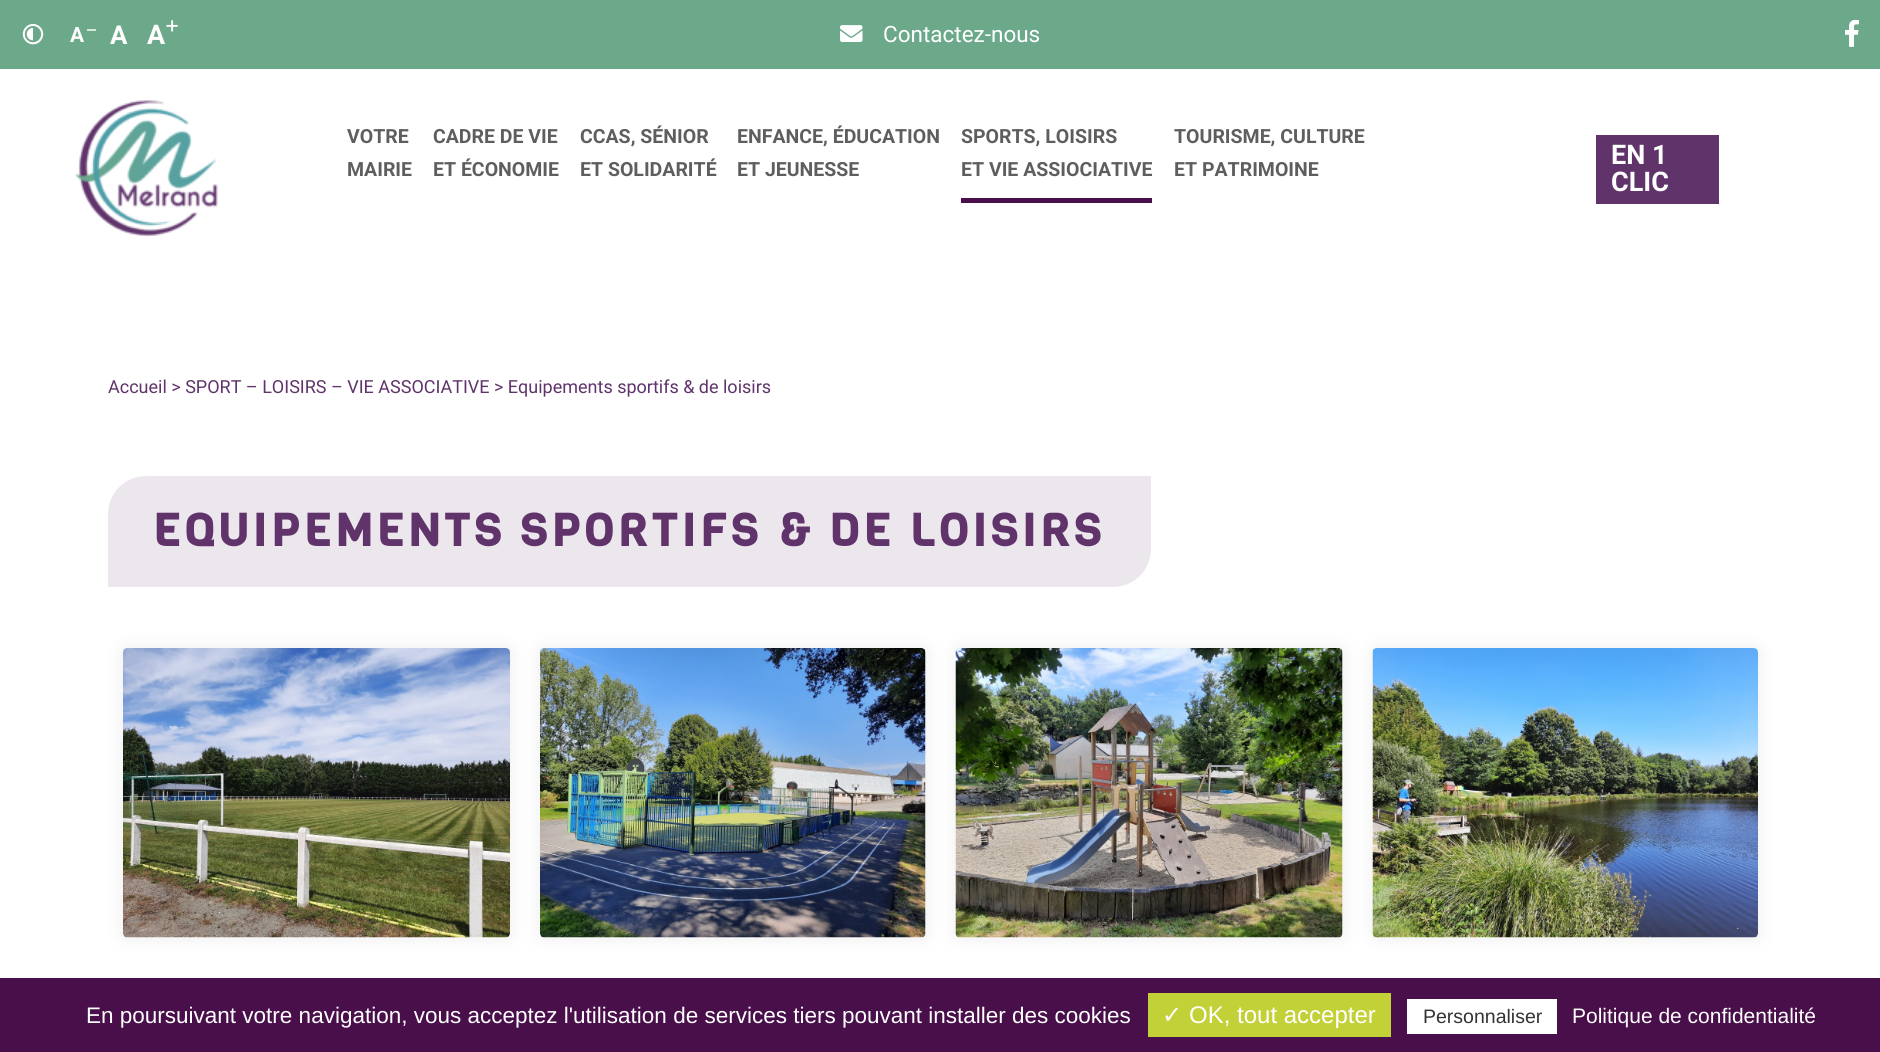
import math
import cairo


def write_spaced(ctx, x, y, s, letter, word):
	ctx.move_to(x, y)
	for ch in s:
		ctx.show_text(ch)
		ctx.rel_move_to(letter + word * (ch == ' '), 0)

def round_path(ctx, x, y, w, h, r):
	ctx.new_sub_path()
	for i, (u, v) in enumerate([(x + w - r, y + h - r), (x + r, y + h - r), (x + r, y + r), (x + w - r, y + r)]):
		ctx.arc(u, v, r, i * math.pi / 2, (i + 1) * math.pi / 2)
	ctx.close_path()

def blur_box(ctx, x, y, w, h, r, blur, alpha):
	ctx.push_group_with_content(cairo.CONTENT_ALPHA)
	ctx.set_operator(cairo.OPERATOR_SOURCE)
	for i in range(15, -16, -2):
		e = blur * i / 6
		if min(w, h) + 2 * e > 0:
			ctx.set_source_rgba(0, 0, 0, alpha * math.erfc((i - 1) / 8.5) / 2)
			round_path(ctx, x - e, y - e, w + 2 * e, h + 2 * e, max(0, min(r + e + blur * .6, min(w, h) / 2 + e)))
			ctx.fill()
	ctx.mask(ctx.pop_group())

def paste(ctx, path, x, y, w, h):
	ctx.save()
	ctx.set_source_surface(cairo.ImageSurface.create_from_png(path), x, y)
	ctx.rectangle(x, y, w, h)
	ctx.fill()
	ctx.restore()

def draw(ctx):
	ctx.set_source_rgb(1, 1, 1)
	ctx.paint()
	ctx.set_source_rgb(0.424, 0.663, 0.545)
	ctx.rectangle(0, 0, 1880, 69)
	ctx.fill()
	paste(ctx, 'media/1.png', 22, 24, 22, 21)
	ctx.select_font_face('Roboto', cairo.FONT_SLANT_NORMAL, cairo.FONT_WEIGHT_BOLD)
	ctx.set_font_size(21)
	ctx.set_source_rgb(1, 1, 1)
	ctx.move_to(70, 42)
	ctx.show_text('A')
	paste(ctx, 'media/2.png', 87, 29, 9, 2)
	ctx.set_font_size(26)
	ctx.move_to(110, 44)
	ctx.show_text('A')
	ctx.set_font_size(27)
	ctx.move_to(147, 44)
	ctx.show_text('A')
	paste(ctx, 'media/3.png', 166, 20, 12, 12)
	paste(ctx, 'media/4.png', 840, 25, 23, 17)
	ctx.select_font_face('Roboto')
	ctx.set_font_size(22.5)
	ctx.move_to(883, 42)
	ctx.show_text('Contactez-nous')
	paste(ctx, 'media/5.png', 1845, 19, 14, 28)
	paste(ctx, 'media/6.png', 75, 100, 143, 137)
	ctx.select_font_face('Roboto', cairo.FONT_SLANT_NORMAL, cairo.FONT_WEIGHT_BOLD)
	ctx.set_font_size(19.5)
	ctx.set_source_rgb(0.373, 0.365, 0.373)
	for x, y, s in [
		(347, 143, 'VOTRE'),
		(347, 176, 'MAIRIE'),
		(433, 143, 'CADRE DE VIE'),
		(433, 176, 'ET ÉCONOMIE'),
		(580, 143, 'CCAS, SÉNIOR'),
		(580, 176, 'ET SOLIDARITÉ'),
		(737, 143, 'ENFANCE, ÉDUCATION'),
		(737, 176, 'ET JEUNESSE'),
	]:
		ctx.move_to(x, y)
		ctx.show_text(s)
	ctx.set_source_rgb(0.286, 0.059, 0.29)
	ctx.rectangle(961, 198, 191, 5)
	ctx.fill()
	ctx.set_source_rgb(0.373, 0.365, 0.373)
	for x, y, s in [
		(961, 143, 'SPORTS, LOISIRS'),
		(961, 176, 'ET VIE ASSIOCIATIVE'),
		(1174, 143, 'TOURISME, CULTURE'),
		(1174, 176, 'ET PATRIMOINE'),
	]:
		ctx.move_to(x, y)
		ctx.show_text(s)
	ctx.set_source_rgb(0.376, 0.204, 0.42)
	ctx.rectangle(1596, 135, 123, 69)
	ctx.fill()
	ctx.set_font_size(27)
	ctx.set_source_rgb(1, 1, 1)
	ctx.move_to(1611, 164)
	ctx.show_text('EN 1')
	ctx.move_to(1611, 191)
	ctx.show_text('CLIC')
	ctx.select_font_face('Roboto')
	ctx.set_font_size(18)
	ctx.set_source_rgb(0.376, 0.204, 0.42)
	ctx.move_to(108, 393)
	ctx.show_text('Accueil > SPORT – LOISIRS – VIE ASSOCIATIVE > Equipements sportifs & de loisirs')
	ctx.set_source_rgb(0.925, 0.906, 0.929)
	ctx.new_path()
	ctx.move_to(146, 476)
	ctx.line_to(1151, 476)
	ctx.line_to(1151, 549)
	ctx.curve_to(1151, 570, 1134, 587, 1113, 587)
	ctx.line_to(108, 587)
	ctx.line_to(108, 514)
	ctx.curve_to(108, 493, 125, 476, 146, 476)
	ctx.close_path()
	ctx.fill()
	ctx.select_font_face('Viga', cairo.FONT_SLANT_NORMAL, cairo.FONT_WEIGHT_BOLD)
	ctx.set_font_size(45)
	ctx.set_source_rgb(0.376, 0.204, 0.42)
	write_spaced(ctx, 153, 546, 'EQUIPEMENTS SPORTIFS & DE LOISIRS', 4.5, 0)
	ctx.set_source_rgb(0.949, 0.949, 0.949)
	blur_box(ctx, 120, 645, 393, 296, 8, 7.5, 1)
	paste(ctx, 'media/7.png', 123, 648, 387, 290)
	blur_box(ctx, 537, 645, 392, 296, 8, 7.5, 1)
	paste(ctx, 'media/8.png', 540, 648, 386, 290)
	blur_box(ctx, 953, 645, 393, 296, 8, 7.5, 1)
	paste(ctx, 'media/9.png', 955, 648, 388, 290)
	blur_box(ctx, 1370, 645, 391, 296, 8, 7.5, 1)
	paste(ctx, 'media/10.png', 1372, 648, 386, 290)
	ctx.set_source_rgb(0.286, 0.059, 0.29)
	ctx.rectangle(0, 978, 1880, 74)
	ctx.fill()
	ctx.select_font_face('Liberation Sans')
	ctx.set_font_size(22.5)
	ctx.set_source_rgb(1, 1, 1)
	ctx.move_to(86, 1023)
	ctx.show_text('En poursuivant votre navigation, vous acceptez l\'utilisation de services tiers pouvant installer des cookies')
	ctx.set_source_rgb(0.757, 0.82, 0.216)
	ctx.rectangle(1148, 993, 243, 44)
	ctx.fill()
	ctx.select_font_face('DejaVu Sans')
	ctx.set_font_size(24)
	ctx.set_source_rgb(1, 1, 1)
	ctx.move_to(1162, 1023)
	ctx.show_text('✓')
	ctx.select_font_face('Liberation Sans')
	ctx.move_to(1189, 1023)
	ctx.show_text('OK, tout accepter')
	ctx.rectangle(1407, 999, 150, 35)
	ctx.fill()
	ctx.set_font_size(19.5)
	ctx.set_source_rgb(0.2, 0.2, 0.2)
	ctx.move_to(1423, 1023)
	ctx.show_text('Personnaliser')
	ctx.set_font_size(21)
	ctx.set_source_rgb(1, 1, 1)
	ctx.move_to(1572, 1023)
	ctx.show_text('Politique de confidentialité')


surface = cairo.ImageSurface(cairo.FORMAT_RGB24, 1880, 1052)
ctx = cairo.Context(surface)
options = cairo.FontOptions()
options.set_hint_metrics(cairo.HINT_METRICS_OFF)
options.set_hint_style(cairo.HINT_STYLE_NONE)
ctx.set_font_options(options)
ctx.set_miter_limit(4)
draw(ctx)
surface.write_to_png('image.png')
